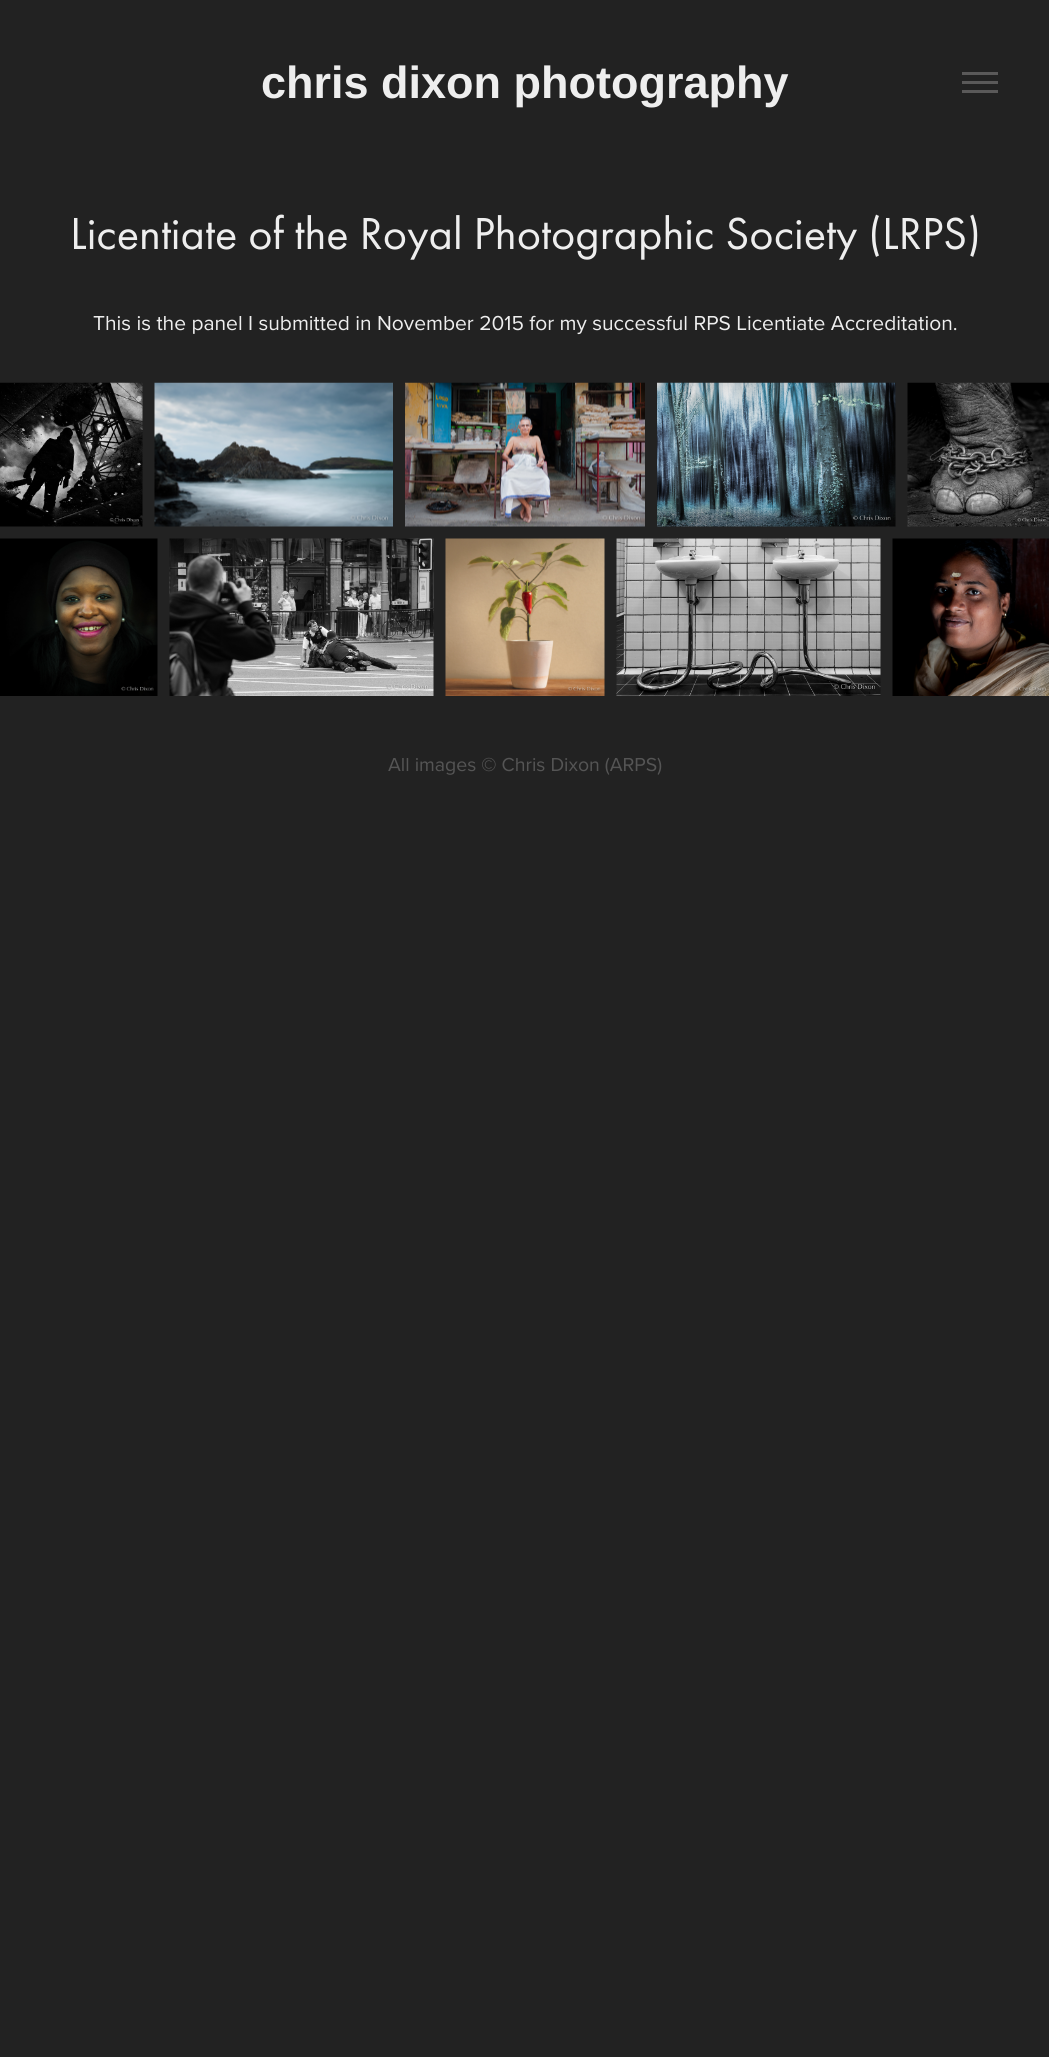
import math
import cairo


def paste(ctx, path, x, y, w, h):
	ctx.save()
	ctx.set_source_surface(cairo.ImageSurface.create_from_png(path), x, y)
	ctx.rectangle(x, y, w, h)
	ctx.fill()
	ctx.restore()

def draw(ctx):
	ctx.set_source_rgb(0.133, 0.133, 0.133)
	ctx.paint()
	ctx.select_font_face('Liberation Sans', cairo.FONT_SLANT_NORMAL, cairo.FONT_WEIGHT_BOLD)
	ctx.set_font_size(45)
	ctx.set_source_rgb(0.933, 0.933, 0.933)
	ctx.move_to(261, 98)
	ctx.show_text('chris dixon photography')
	ctx.set_source_rgb(0.353, 0.349, 0.349)
	ctx.rectangle(962, 72, 36, 3)
	ctx.rectangle(962, 81, 36, 3)
	ctx.rectangle(962, 90, 36, 3)
	ctx.fill()
	ctx.select_font_face('Futura PT')
	ctx.set_font_size(46.5)
	ctx.set_source_rgb(0.933, 0.933, 0.933)
	ctx.move_to(70, 249)
	ctx.show_text('Licentiate of the Royal Photographic Society (LRPS)')
	ctx.select_font_face('Proxima Nova')
	ctx.set_font_size(21)
	ctx.move_to(93, 330)
	ctx.show_text('This is the panel I submitted in November 2015 for my successful RPS Licentiate Accreditation.')
	paste(ctx, 'media/1.png', 0, 382, 143, 145)
	paste(ctx, 'media/2.png', 154, 382, 239, 145)
	paste(ctx, 'media/3.png', 405, 382, 240, 145)
	paste(ctx, 'media/4.png', 657, 382, 239, 145)
	paste(ctx, 'media/5.png', 907, 382, 142, 145)
	paste(ctx, 'media/6.png', 0, 538, 158, 158)
	paste(ctx, 'media/7.png', 169, 538, 265, 158)
	paste(ctx, 'media/8.png', 445, 538, 160, 158)
	paste(ctx, 'media/9.png', 616, 538, 265, 158)
	paste(ctx, 'media/10.png', 892, 538, 157, 158)
	ctx.set_font_size(19.5)
	ctx.set_source_rgb(0.333, 0.333, 0.333)
	ctx.move_to(388, 771)
	ctx.show_text('All images © Chris Dixon (ARPS)')


surface = cairo.ImageSurface(cairo.FORMAT_RGB24, 1049, 2057)
ctx = cairo.Context(surface)
options = cairo.FontOptions()
options.set_hint_metrics(cairo.HINT_METRICS_OFF)
options.set_hint_style(cairo.HINT_STYLE_NONE)
ctx.set_font_options(options)
ctx.set_miter_limit(4)
draw(ctx)
surface.write_to_png('image.png')
